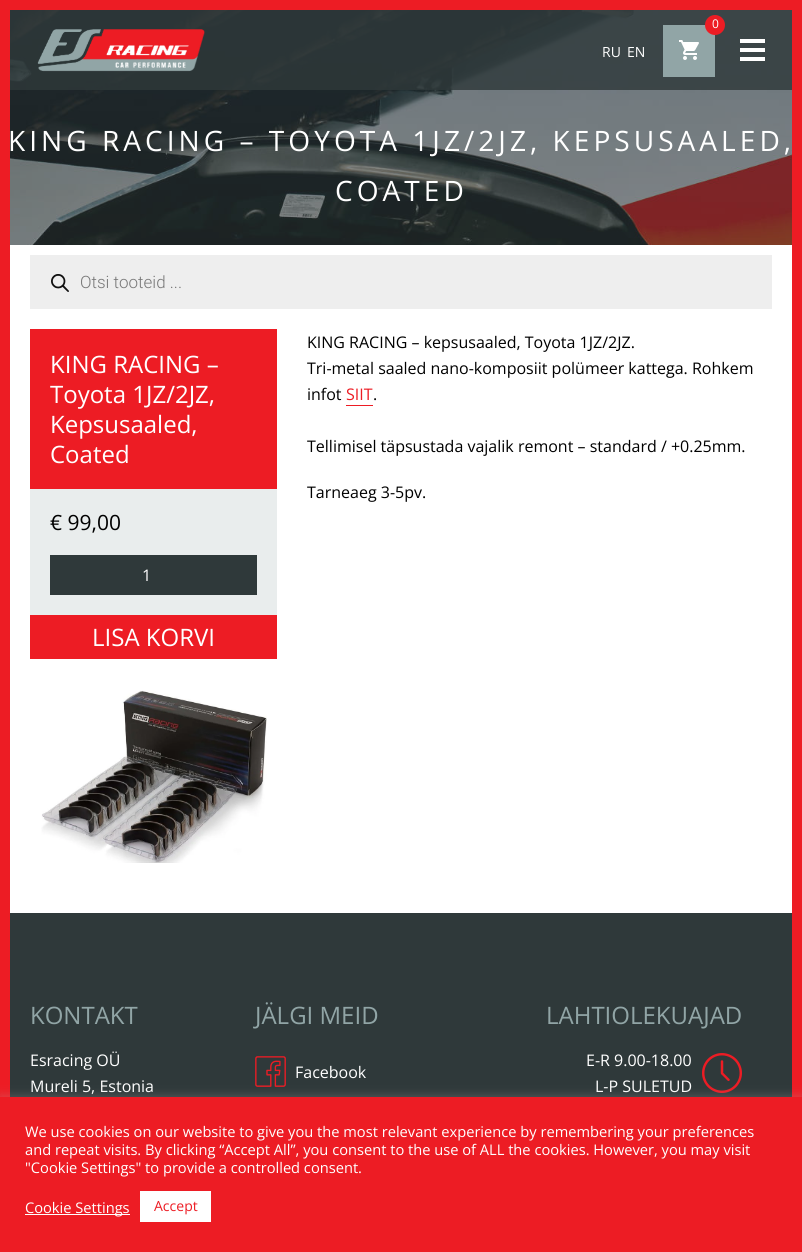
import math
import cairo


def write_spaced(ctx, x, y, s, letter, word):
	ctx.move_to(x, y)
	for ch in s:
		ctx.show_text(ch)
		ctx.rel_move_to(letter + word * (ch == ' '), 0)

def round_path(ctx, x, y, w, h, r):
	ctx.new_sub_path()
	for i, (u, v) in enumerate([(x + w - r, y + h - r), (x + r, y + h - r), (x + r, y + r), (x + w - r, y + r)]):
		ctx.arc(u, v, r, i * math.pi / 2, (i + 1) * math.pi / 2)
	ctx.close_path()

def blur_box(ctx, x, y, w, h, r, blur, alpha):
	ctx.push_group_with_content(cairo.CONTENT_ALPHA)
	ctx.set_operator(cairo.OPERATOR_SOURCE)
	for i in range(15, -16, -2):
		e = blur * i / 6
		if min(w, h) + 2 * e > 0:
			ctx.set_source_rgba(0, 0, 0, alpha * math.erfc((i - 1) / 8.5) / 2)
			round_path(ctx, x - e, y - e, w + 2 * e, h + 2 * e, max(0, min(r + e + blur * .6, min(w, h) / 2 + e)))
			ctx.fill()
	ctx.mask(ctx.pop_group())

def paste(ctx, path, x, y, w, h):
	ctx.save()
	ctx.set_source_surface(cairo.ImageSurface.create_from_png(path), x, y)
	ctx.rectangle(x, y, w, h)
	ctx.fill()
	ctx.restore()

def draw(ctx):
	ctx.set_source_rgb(1, 1, 1)
	ctx.paint()
	paste(ctx, 'media/1.png', 10, 10, 782, 235)
	ctx.set_source_rgb(0.929, 0.11, 0.141)
	ctx.rectangle(0, 0, 10, 1097)
	ctx.rectangle(10, 0, 782, 10)
	ctx.rectangle(792, 0, 10, 1097)
	ctx.fill()
	ctx.set_source_rgba(0.184, 0.224, 0.227, 0.8)
	ctx.rectangle(10, 10, 782, 80)
	ctx.fill()
	paste(ctx, 'media/2.png', 37, 29, 168, 43)
	ctx.set_source_rgb(0.569, 0.647, 0.651)
	ctx.rectangle(663, 25, 52, 52)
	ctx.fill()
	ctx.set_source_rgb(0.929, 0.11, 0.141)
	ctx.arc(715, 25, 10, 0, 2 * math.pi)
	ctx.fill()
	ctx.select_font_face('Open Sans')
	ctx.set_font_size(12)
	ctx.set_source_rgb(1, 1, 1)
	ctx.move_to(712, 28)
	ctx.show_text('0')
	paste(ctx, 'media/3.png', 679, 40, 20, 20)
	ctx.set_font_size(14)
	ctx.move_to(602, 57)
	ctx.show_text('RU')
	ctx.move_to(627, 57)
	ctx.show_text('EN')
	ctx.rectangle(740, 39, 25, 4)
	ctx.rectangle(740, 48, 25, 4)
	ctx.rectangle(740, 57, 25, 4)
	ctx.fill()
	ctx.set_font_size(28.1)
	write_spaced(ctx, 8, 151, 'KING RACING – TOYOTA 1JZ/2JZ, KEPSUSAALED,', 4, 0)
	write_spaced(ctx, 335, 201, 'COATED', 4, 0)
	ctx.set_source_rgb(0.933, 0.933, 0.933)
	ctx.rectangle(30, 255, 742, 54)
	ctx.fill()
	paste(ctx, 'media/4.png', 51, 274, 18, 18)
	ctx.select_font_face('Roboto Light')
	ctx.set_font_size(17)
	ctx.set_source_rgb(0.467, 0.467, 0.467)
	ctx.move_to(80, 288)
	ctx.show_text('Otsi tooteid ...')
	ctx.set_source_rgb(0.914, 0.929, 0.929)
	ctx.rectangle(30, 489, 247, 126)
	ctx.fill()
	ctx.set_source_rgb(0.929, 0.11, 0.141)
	ctx.rectangle(30, 329, 247, 160)
	ctx.fill()
	ctx.select_font_face('Open Sans')
	ctx.set_font_size(24)
	ctx.set_source_rgb(1, 1, 1)
	for x, y, s in [
		(50, 373, 'KING RACING –'),
		(50, 403, 'Toyota 1JZ/2JZ,'),
		(50, 433, 'Kepsusaaled,'),
		(50, 463, 'Coated'),
	]:
		ctx.move_to(x, y)
		ctx.show_text(s)
	ctx.set_font_size(21)
	ctx.set_source_rgb(0, 0, 0)
	ctx.move_to(50, 530)
	ctx.show_text('€ 99,00')
	ctx.set_source_rgb(0.184, 0.224, 0.227)
	ctx.rectangle(50, 555, 207, 40)
	ctx.fill()
	ctx.set_font_size(16)
	ctx.set_source_rgb(1, 1, 1)
	ctx.move_to(142, 581)
	ctx.show_text('1')
	ctx.set_source_rgb(0.929, 0.11, 0.141)
	ctx.rectangle(30, 615, 247, 44)
	ctx.fill()
	ctx.set_font_size(24)
	ctx.set_source_rgb(1, 1, 1)
	ctx.move_to(92, 646)
	ctx.show_text('LISA KORVI')
	paste(ctx, 'media/5.png', 41, 690, 226, 173)
	ctx.set_font_size(16)
	ctx.set_source_rgb(0, 0, 0)
	for x, y, s in [
		(307, 348, 'KING RACING – kepsusaaled, Toyota 1JZ/2JZ.'),
		(307, 374, 'Tri-metal saaled nano-komposiit polümeer kattega. Rohkem'),
		(307, 400, 'infot'),
	]:
		ctx.move_to(x, y)
		ctx.show_text(s)
	ctx.set_source_rgb(0.929, 0.11, 0.141)
	ctx.move_to(346, 400)
	ctx.show_text('SIIT')
	ctx.rectangle(346, 405, 27, 1)
	ctx.fill()
	ctx.set_source_rgb(0, 0, 0)
	for x, y, s in [
		(373, 400, '.'),
		(307, 452, 'Tellimisel täpsustada vajalik remont – standard / +0.25mm.'),
		(307, 498, 'Tarneaeg 3-5pv.'),
	]:
		ctx.move_to(x, y)
		ctx.show_text(s)
	ctx.set_source_rgb(0.184, 0.224, 0.227)
	ctx.rectangle(10, 913, 782, 184)
	ctx.fill()
	ctx.set_font_size(24)
	ctx.set_source_rgb(0.569, 0.647, 0.651)
	ctx.move_to(30, 1024)
	ctx.show_text('KONTAKT')
	ctx.set_font_size(16)
	ctx.set_source_rgb(1, 1, 1)
	ctx.move_to(30, 1066)
	ctx.show_text('Esracing OÜ')
	ctx.move_to(30, 1092)
	ctx.show_text('Mureli 5, Estonia')
	ctx.set_font_size(24)
	ctx.set_source_rgb(0.569, 0.647, 0.651)
	ctx.move_to(255, 1024)
	ctx.show_text('JÄLGI MEID')
	paste(ctx, 'media/6.png', 255, 1056, 31, 31)
	ctx.set_font_size(16)
	ctx.set_source_rgb(1, 1, 1)
	ctx.move_to(295, 1078)
	ctx.show_text('Facebook')
	ctx.set_font_size(24)
	ctx.set_source_rgb(0.569, 0.647, 0.651)
	ctx.move_to(546, 1024)
	ctx.show_text('LAHTIOLEKUAJAD')
	paste(ctx, 'media/7.png', 702, 1053, 40, 40)
	ctx.set_font_size(16)
	ctx.set_source_rgb(1, 1, 1)
	ctx.move_to(586, 1066)
	ctx.show_text('E-R 9.00-18.00')
	ctx.move_to(595, 1092)
	ctx.show_text('L-P SULETUD')
	ctx.set_source_rgb(0.675, 0.671, 0.671)
	blur_box(ctx, 0, 1096, 802, 155, 0, 5, 0.3)
	ctx.set_source_rgb(0.929, 0.11, 0.141)
	ctx.rectangle(0, 1097, 802, 155)
	ctx.fill()
	ctx.set_font_size(14.65)
	ctx.set_source_rgb(1, 1, 1)
	for x, y, s in [
		(25, 1137, 'We use cookies on our website to give you the most relevant experience by remembering your preferences'),
		(25, 1155, 'and repeat visits. By clicking “Accept All”, you consent to the use of ALL the cookies. However, you may visit'),
		(25, 1173, '"Cookie Settings" to provide a controlled consent.'),
	]:
		ctx.move_to(x, y)
		ctx.show_text(s)
	ctx.rectangle(25, 1214, 105, 1)
	ctx.fill()
	ctx.move_to(25, 1213)
	ctx.show_text('Cookie Settings')
	ctx.rectangle(140, 1191, 71, 31)
	ctx.fill()
	ctx.set_font_size(14)
	ctx.set_source_rgb(0.929, 0.11, 0.141)
	ctx.move_to(154, 1211)
	ctx.show_text('Accept')


surface = cairo.ImageSurface(cairo.FORMAT_RGB24, 802, 1252)
ctx = cairo.Context(surface)
options = cairo.FontOptions()
options.set_hint_metrics(cairo.HINT_METRICS_OFF)
options.set_hint_style(cairo.HINT_STYLE_NONE)
ctx.set_font_options(options)
ctx.set_miter_limit(4)
draw(ctx)
surface.write_to_png('image.png')
